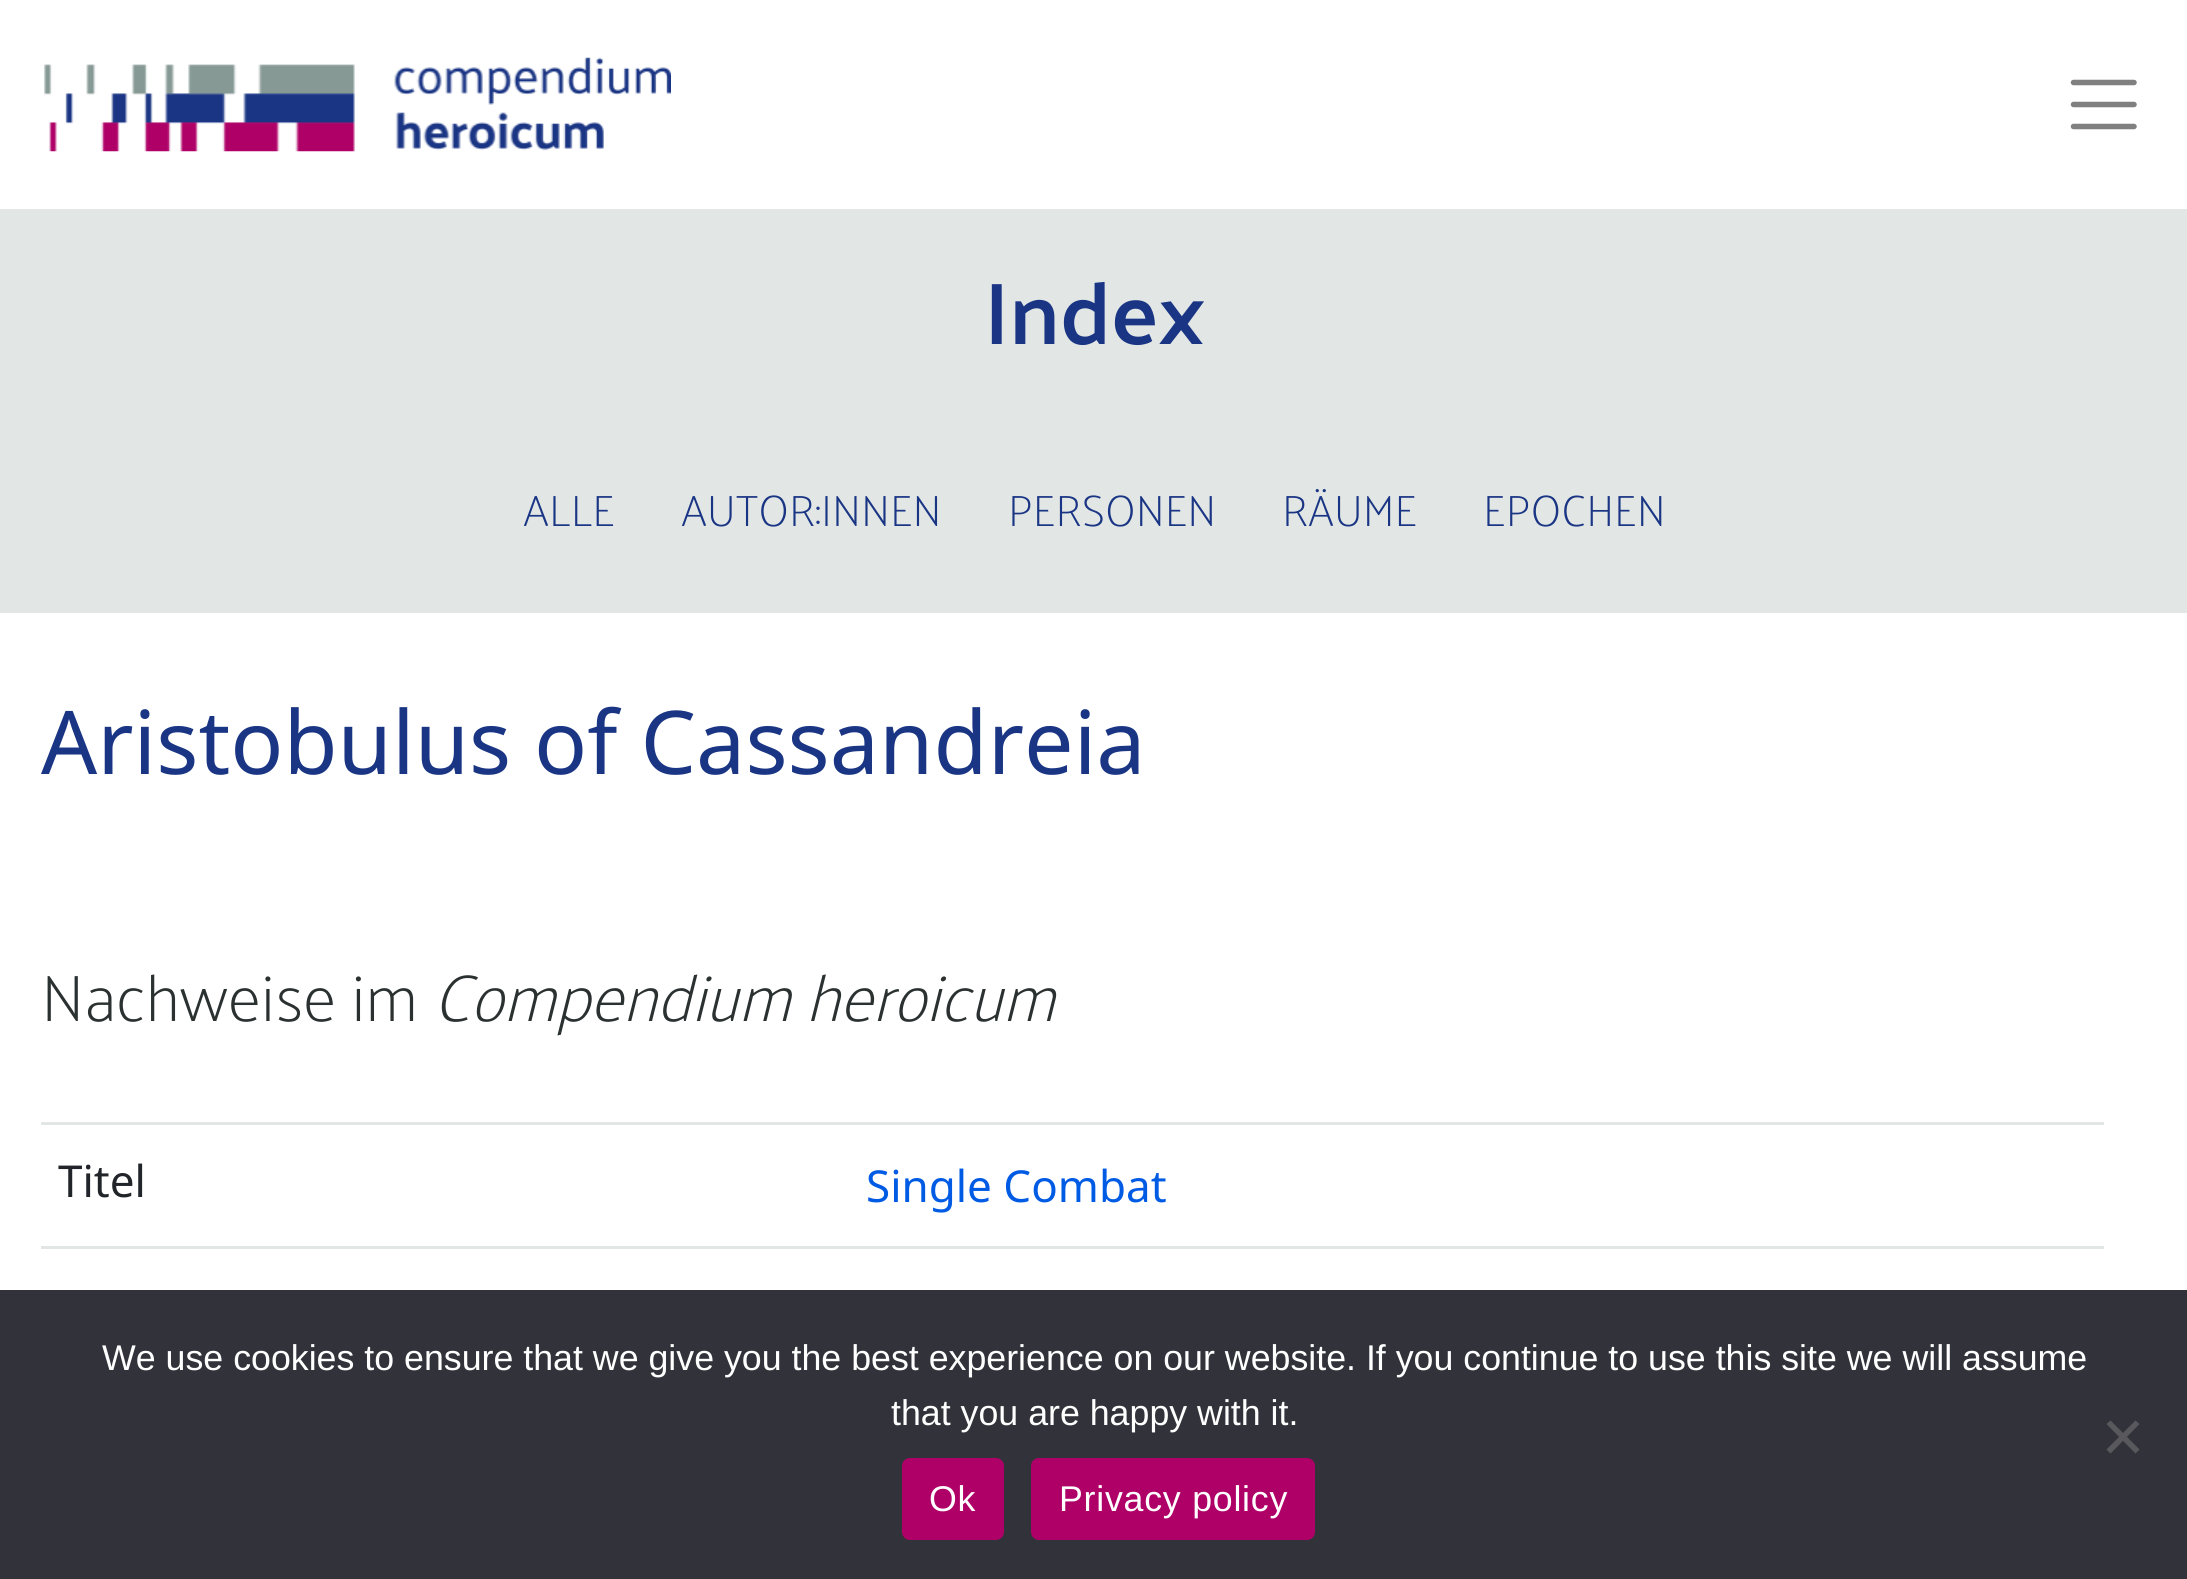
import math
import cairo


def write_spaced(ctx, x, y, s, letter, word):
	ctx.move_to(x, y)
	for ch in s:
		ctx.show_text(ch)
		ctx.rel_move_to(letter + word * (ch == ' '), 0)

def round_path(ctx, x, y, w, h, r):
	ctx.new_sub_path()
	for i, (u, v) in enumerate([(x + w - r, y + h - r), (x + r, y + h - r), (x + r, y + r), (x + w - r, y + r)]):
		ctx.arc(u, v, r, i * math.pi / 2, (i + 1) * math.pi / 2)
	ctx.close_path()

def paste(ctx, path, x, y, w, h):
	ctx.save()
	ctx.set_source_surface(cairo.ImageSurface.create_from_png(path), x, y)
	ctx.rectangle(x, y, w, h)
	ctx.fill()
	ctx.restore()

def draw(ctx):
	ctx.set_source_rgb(1, 1, 1)
	ctx.paint()
	paste(ctx, 'media/1.png', 44, 57, 627, 95)
	ctx.new_path()
	ctx.move_to(2073.5, 82.5)
	ctx.line_to(2134, 82.5)
	ctx.move_to(2073.5, 104.5)
	ctx.line_to(2134, 104.5)
	ctx.move_to(2073.5, 126.5)
	ctx.line_to(2134, 126.5)
	ctx.set_source_rgb(0.502, 0.502, 0.502)
	ctx.set_line_width(5.5)
	ctx.set_line_cap(cairo.LINE_CAP_ROUND)
	ctx.stroke()
	ctx.set_source_rgb(0.886, 0.906, 0.902)
	ctx.rectangle(0, 209, 2187, 404)
	ctx.fill()
	ctx.select_font_face('Palanquin SemiBold')
	ctx.set_font_size(88)
	ctx.set_source_rgb(0.102, 0.208, 0.518)
	ctx.move_to(984, 344)
	ctx.show_text('Index')
	ctx.select_font_face('Palanquin ExtraLight')
	ctx.set_font_size(44)
	for x, y, s in [
		(523, 526, 'ALLE'),
		(681, 526, 'AUTOR:INNEN'),
		(1008, 526, 'PERSONEN'),
		(1282, 526, 'RÄUME'),
		(1483, 526, 'EPOCHEN'),
	]:
		ctx.move_to(x, y)
		ctx.show_text(s)
	ctx.select_font_face('Noto Sans')
	ctx.set_font_size(88)
	ctx.move_to(41, 774)
	ctx.show_text('Aristobulus of Cassandreia')
	ctx.select_font_face('Palanquin ExtraLight')
	ctx.set_font_size(66)
	ctx.set_source_rgb(0.165, 0.192, 0.188)
	ctx.move_to(41, 1021)
	ctx.show_text('Nachweise im')
	ctx.select_font_face('Palanquin ExtraLight', cairo.FONT_SLANT_ITALIC)
	ctx.move_to(433, 1021)
	ctx.show_text('Compendium heroicum')
	ctx.set_source_rgb(0.886, 0.906, 0.902)
	ctx.rectangle(41, 1122, 2063, 3)
	ctx.fill()
	ctx.select_font_face('Noto Sans')
	ctx.set_font_size(44)
	ctx.set_source_rgb(0.129, 0.145, 0.161)
	ctx.move_to(58, 1197)
	ctx.show_text('Titel')
	ctx.set_source_rgb(0, 0.357, 0.894)
	ctx.move_to(866, 1202)
	ctx.show_text('Single Combat')
	ctx.set_source_rgb(0.886, 0.906, 0.902)
	ctx.rectangle(41, 1246, 2063, 3)
	ctx.fill()
	ctx.set_source_rgb(0.196, 0.196, 0.227)
	ctx.rectangle(0, 1290, 2187, 289)
	ctx.fill()
	ctx.select_font_face('Liberation Sans')
	ctx.set_font_size(35.75)
	ctx.set_source_rgb(1, 1, 1)
	ctx.move_to(102, 1370)
	ctx.show_text('We use cookies to ensure that we give you the best experience on our website. If you continue to use this site we will assume')
	ctx.move_to(891, 1425)
	ctx.show_text('that you are happy with it.')
	ctx.set_source_rgb(0.349, 0.349, 0.365)
	ctx.new_path()
	ctx.move_to(2135.5, 1420.5)
	ctx.line_to(2139.5, 1424)
	ctx.line_to(2110.5, 1453.5)
	ctx.line_to(2106.5, 1449.5)
	ctx.close_path()
	ctx.fill()
	ctx.new_path()
	ctx.move_to(2106.5, 1424)
	ctx.line_to(2110.5, 1420.5)
	ctx.line_to(2139.5, 1449.5)
	ctx.line_to(2135.5, 1453.5)
	ctx.close_path()
	ctx.fill()
	ctx.set_source_rgb(0.686, 0, 0.404)
	round_path(ctx, 902, 1458, 102, 82, 8)
	ctx.fill()
	ctx.set_source_rgb(1, 1, 1)
	write_spaced(ctx, 929, 1511, 'Ok', 0.75, 0)
	ctx.set_source_rgb(0.686, 0, 0.404)
	round_path(ctx, 1031, 1458, 284, 82, 8)
	ctx.fill()
	ctx.set_source_rgb(1, 1, 1)
	write_spaced(ctx, 1059, 1511, 'Privacy policy', 0.75, 0)


surface = cairo.ImageSurface(cairo.FORMAT_RGB24, 2187, 1579)
ctx = cairo.Context(surface)
options = cairo.FontOptions()
options.set_hint_metrics(cairo.HINT_METRICS_OFF)
options.set_hint_style(cairo.HINT_STYLE_NONE)
ctx.set_font_options(options)
ctx.set_miter_limit(4)
draw(ctx)
surface.write_to_png('image.png')
